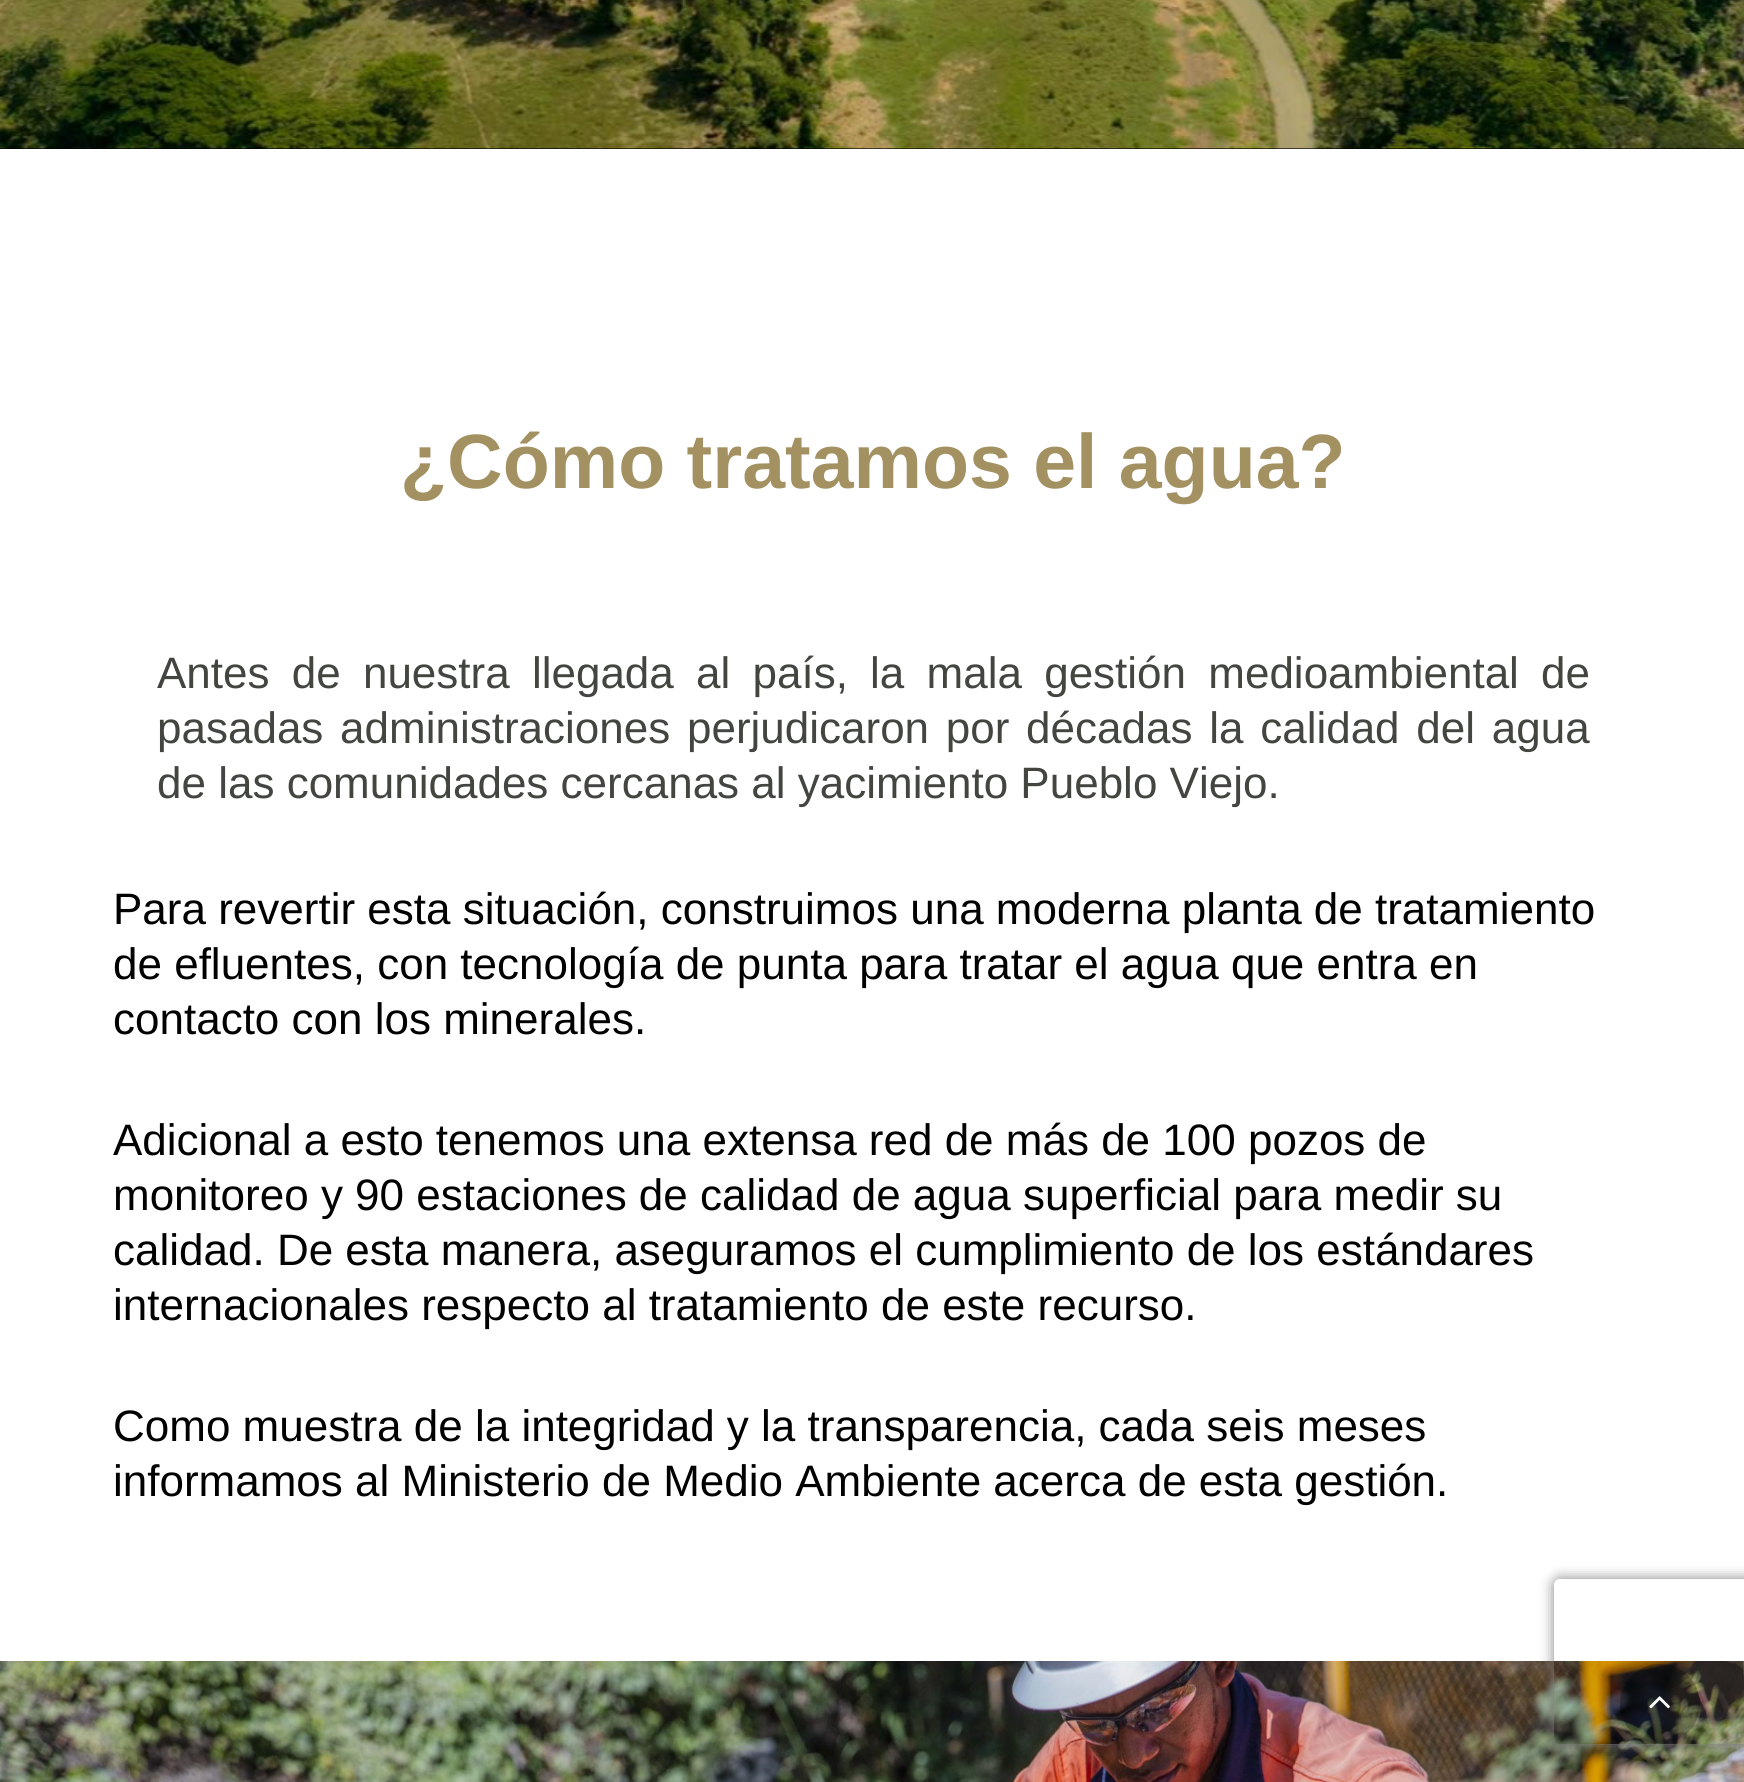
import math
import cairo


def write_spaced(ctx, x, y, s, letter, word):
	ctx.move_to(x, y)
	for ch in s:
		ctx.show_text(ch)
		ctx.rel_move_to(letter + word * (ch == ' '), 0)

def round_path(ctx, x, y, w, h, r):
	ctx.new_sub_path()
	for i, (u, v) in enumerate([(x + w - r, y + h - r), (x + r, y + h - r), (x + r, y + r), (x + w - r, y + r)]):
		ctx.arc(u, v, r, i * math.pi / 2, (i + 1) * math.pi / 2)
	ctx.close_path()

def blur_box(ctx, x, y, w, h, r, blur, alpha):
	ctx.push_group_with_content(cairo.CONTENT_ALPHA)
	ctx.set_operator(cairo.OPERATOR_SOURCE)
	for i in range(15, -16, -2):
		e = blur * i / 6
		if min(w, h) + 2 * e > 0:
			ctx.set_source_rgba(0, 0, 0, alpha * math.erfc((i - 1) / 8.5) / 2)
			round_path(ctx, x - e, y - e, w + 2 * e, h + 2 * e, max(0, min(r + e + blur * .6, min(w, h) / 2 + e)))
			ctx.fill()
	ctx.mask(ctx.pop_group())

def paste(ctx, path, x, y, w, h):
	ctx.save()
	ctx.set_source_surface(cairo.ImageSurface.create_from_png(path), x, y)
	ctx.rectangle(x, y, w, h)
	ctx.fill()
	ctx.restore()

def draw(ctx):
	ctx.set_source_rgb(0, 0, 0)
	ctx.paint()
	paste(ctx, 'media/1.png', 0, 0, 1744, 149)
	ctx.set_source_rgb(1, 1, 1)
	ctx.rectangle(0, 149, 1744, 1512)
	ctx.fill()
	ctx.select_font_face('Liberation Sans', cairo.FONT_SLANT_NORMAL, cairo.FONT_WEIGHT_BOLD)
	ctx.set_font_size(77)
	ctx.set_source_rgb(0.639, 0.569, 0.38)
	ctx.move_to(400, 488)
	ctx.show_text('¿Cómo tratamos el agua?')
	ctx.select_font_face('Liberation Sans')
	ctx.set_font_size(44)
	ctx.set_source_rgb(0.263, 0.271, 0.251)
	write_spaced(ctx, 157, 688, 'Antes de nuestra llegada al país, la mala gestión medioambiental de', 0, 10)
	write_spaced(ctx, 157, 743, 'pasadas administraciones perjudicaron por décadas la calidad del agua', 0, 4.5)
	ctx.move_to(157, 798)
	ctx.show_text('de las comunidades cercanas al yacimiento Pueblo Viejo.')
	ctx.set_source_rgb(0, 0, 0)
	for x, y, s in [
		(113, 924, 'Para revertir esta situación, construimos una moderna planta de tratamiento'),
		(113, 979, 'de efluentes, con tecnología de punta para tratar el agua que entra en'),
		(113, 1034, 'contacto con los minerales.'),
		(113, 1155, 'Adicional a esto tenemos una extensa red de más de 100 pozos de'),
		(113, 1210, 'monitoreo y 90 estaciones de calidad de agua superficial para medir su'),
		(113, 1265, 'calidad. De esta manera, aseguramos el cumplimiento de los estándares'),
		(113, 1320, 'internacionales respecto al tratamiento de este recurso.'),
		(113, 1441, 'Como muestra de la integridad y la transparencia, cada seis meses'),
		(113, 1496, 'informamos al Ministerio de Medio Ambiente acerca de esta gestión.'),
	]:
		ctx.move_to(x, y)
		ctx.show_text(s)
	paste(ctx, 'media/2.png', 0, 1661, 1744, 121)
	ctx.set_source_rgba(0, 0, 0, 0.25)
	ctx.arc(1660, 1704, 40, 0, 2 * math.pi)
	ctx.fill()
	paste(ctx, 'media/3.png', 1649, 1696, 21, 13)
	ctx.save()
	ctx.set_fill_rule(cairo.FILL_RULE_EVEN_ODD)
	ctx.new_path()
	ctx.move_to(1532, 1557)
	ctx.line_to(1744, 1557)
	ctx.line_to(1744, 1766)
	ctx.line_to(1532, 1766)
	ctx.close_path()
	ctx.move_to(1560, 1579)
	ctx.line_to(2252, 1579)
	ctx.curve_to(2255.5, 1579, 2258, 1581.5, 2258, 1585)
	ctx.line_to(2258, 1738)
	ctx.curve_to(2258, 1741.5, 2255.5, 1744, 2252, 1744)
	ctx.line_to(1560, 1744)
	ctx.curve_to(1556.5, 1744, 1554, 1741.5, 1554, 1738)
	ctx.line_to(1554, 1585)
	ctx.curve_to(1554, 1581.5, 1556.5, 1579, 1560, 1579)
	ctx.close_path()
	ctx.clip()
	ctx.set_source_rgb(0.502, 0.502, 0.502)
	blur_box(ctx, 1554, 1579, 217, 165, 6, 7, 1)
	ctx.restore()


surface = cairo.ImageSurface(cairo.FORMAT_RGB24, 1744, 1782)
ctx = cairo.Context(surface)
options = cairo.FontOptions()
options.set_hint_metrics(cairo.HINT_METRICS_OFF)
options.set_hint_style(cairo.HINT_STYLE_NONE)
ctx.set_font_options(options)
ctx.set_miter_limit(4)
draw(ctx)
surface.write_to_png('image.png')
